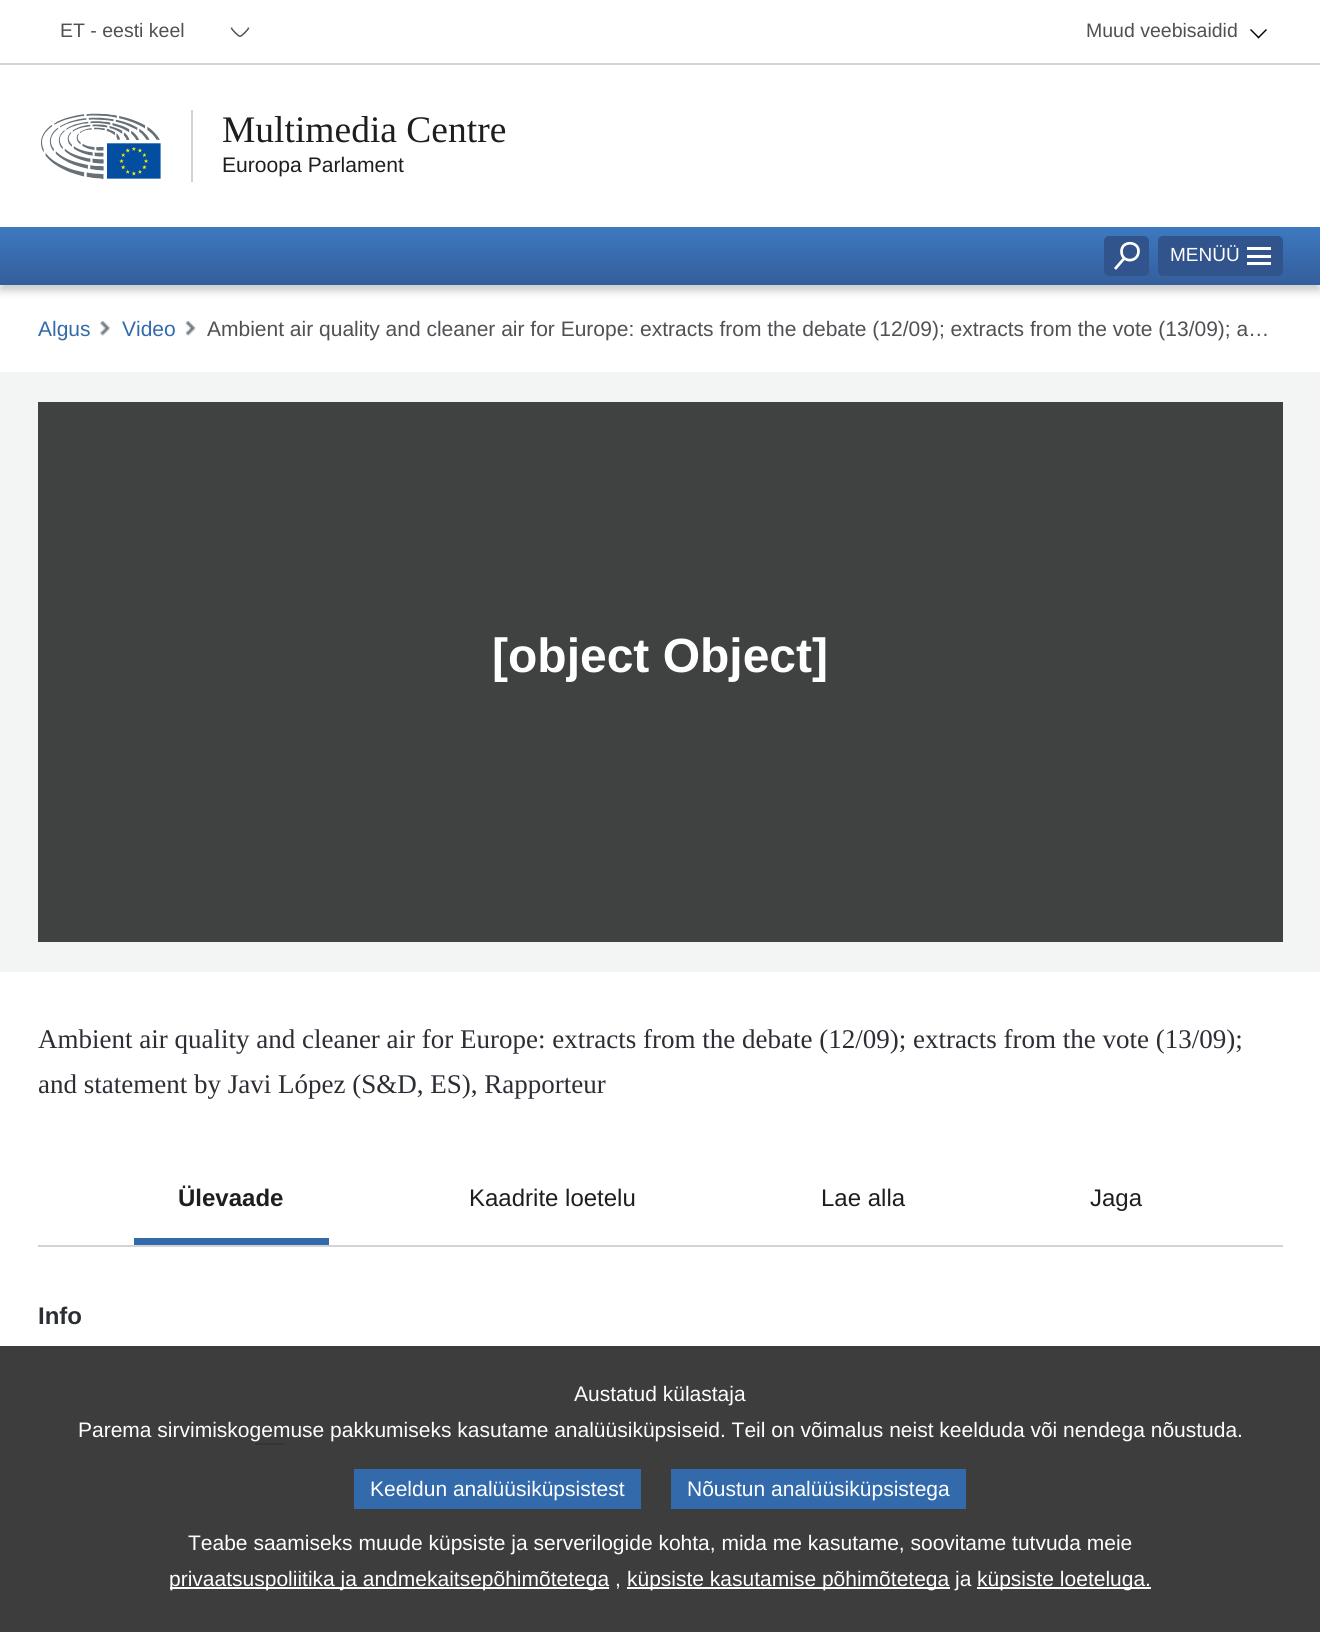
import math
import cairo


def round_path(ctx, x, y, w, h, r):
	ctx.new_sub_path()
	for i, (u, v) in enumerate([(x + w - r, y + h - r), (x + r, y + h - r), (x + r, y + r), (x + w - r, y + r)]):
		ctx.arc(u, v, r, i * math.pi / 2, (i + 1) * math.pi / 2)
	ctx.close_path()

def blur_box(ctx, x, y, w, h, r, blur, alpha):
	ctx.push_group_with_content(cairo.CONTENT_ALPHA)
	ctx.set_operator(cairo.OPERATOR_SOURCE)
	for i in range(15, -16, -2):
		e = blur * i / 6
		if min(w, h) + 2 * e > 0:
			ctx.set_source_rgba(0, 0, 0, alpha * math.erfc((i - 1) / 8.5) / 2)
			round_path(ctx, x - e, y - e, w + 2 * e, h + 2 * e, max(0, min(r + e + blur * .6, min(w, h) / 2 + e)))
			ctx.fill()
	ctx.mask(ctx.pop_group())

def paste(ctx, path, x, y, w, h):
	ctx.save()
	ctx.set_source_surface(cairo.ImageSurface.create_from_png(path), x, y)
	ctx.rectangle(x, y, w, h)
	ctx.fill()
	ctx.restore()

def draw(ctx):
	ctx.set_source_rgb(1, 1, 1)
	ctx.paint()
	ctx.set_source_rgb(0.239, 0.239, 0.239)
	ctx.rectangle(0, 1346, 1320, 286)
	ctx.fill()
	ctx.set_source_rgb(0.82, 0.827, 0.831)
	ctx.rectangle(0, 63, 1320, 2)
	ctx.fill()
	ctx.select_font_face('Liberation Sans')
	ctx.set_font_size(19.5)
	ctx.set_source_rgb(0.314, 0.318, 0.329)
	ctx.move_to(60, 37)
	ctx.show_text('ET - eesti keel')
	ctx.new_path()
	ctx.move_to(248.5, 27.5)
	ctx.curve_to(248.5, 29.5, 246, 31, 245, 32.5)
	ctx.curve_to(239.5, 37.5, 240.5, 37.5, 235, 32.5)
	ctx.curve_to(234, 31, 231.5, 29.5, 231.5, 27.5)
	ctx.set_line_width(1.5)
	ctx.stroke()
	ctx.move_to(1086, 37)
	ctx.show_text('Muud veebisaidid')
	ctx.set_source_rgb(0, 0, 0)
	ctx.new_path()
	ctx.move_to(1266, 29)
	ctx.line_to(1267, 30)
	ctx.line_to(1258.5, 38.5)
	ctx.line_to(1257.5, 37.5)
	ctx.close_path()
	ctx.fill()
	ctx.new_path()
	ctx.move_to(1251, 29)
	ctx.line_to(1259.5, 37.5)
	ctx.line_to(1258.5, 38.5)
	ctx.line_to(1250, 30)
	ctx.close_path()
	ctx.fill()
	paste(ctx, 'media/1.png', 40, 113, 121, 66)
	ctx.set_source_rgb(0.82, 0.827, 0.831)
	ctx.rectangle(191, 110, 2, 72)
	ctx.fill()
	ctx.select_font_face('Liberation Serif')
	ctx.set_font_size(37.5)
	ctx.set_source_rgb(0.118, 0.118, 0.122)
	ctx.move_to(222, 142)
	ctx.show_text('Multimedia Centre')
	ctx.select_font_face('Liberation Sans')
	ctx.set_font_size(21.1)
	ctx.move_to(222, 172)
	ctx.show_text('Euroopa Parlament')
	ctx.set_source_rgb(0, 0, 0)
	blur_box(ctx, 0, 233, 1320, 58, 0, 4, 0.2)
	gradient = cairo.LinearGradient(660, 226, 660, 285)
	gradient.add_color_stop_rgba(0, 0.239, 0.478, 0.757, 1)
	gradient.add_color_stop_rgba(1, 0.204, 0.369, 0.612, 1)
	ctx.set_source(gradient)
	ctx.rectangle(0, 227, 1320, 58)
	ctx.fill()
	ctx.set_source_rgb(0.196, 0.329, 0.553)
	round_path(ctx, 1104, 236, 45, 40, 5)
	ctx.fill()
	ctx.new_path()
	ctx.move_to(1121.5, 251.5)
	ctx.curve_to(1121.5, 263, 1138, 263, 1138.5, 251.5)
	ctx.curve_to(1139, 241, 1121.5, 240, 1121.5, 251.5)
	ctx.close_path()
	ctx.move_to(1124.5, 258)
	ctx.line_to(1115, 269)
	ctx.set_source_rgb(1, 1, 1)
	ctx.set_line_width(2.7)
	ctx.stroke()
	ctx.set_source_rgb(0.196, 0.329, 0.553)
	round_path(ctx, 1158, 236, 125, 40, 5)
	ctx.fill()
	ctx.set_font_size(19)
	ctx.set_source_rgb(1, 1, 1)
	ctx.move_to(1170, 261)
	ctx.show_text('MENÜÜ')
	ctx.rectangle(1247, 247, 24, 3)
	ctx.rectangle(1247, 255, 24, 3)
	ctx.rectangle(1247, 262, 24, 3)
	ctx.fill()
	ctx.set_font_size(21)
	ctx.set_source_rgb(0.196, 0.416, 0.671)
	ctx.move_to(38, 336)
	ctx.show_text('Algus')
	paste(ctx, 'media/2.png', 100, 321, 10, 15)
	ctx.move_to(122, 336)
	ctx.show_text('Video')
	paste(ctx, 'media/3.png', 186, 321, 10, 15)
	ctx.set_source_rgb(0.314, 0.318, 0.329)
	ctx.move_to(207, 336)
	ctx.show_text('Ambient air quality and cleaner air for Europe: extracts from the debate (12/09); extracts from the vote (13/09); a…')
	ctx.set_source_rgb(0.953, 0.957, 0.957)
	ctx.rectangle(0, 372, 1320, 600)
	ctx.fill()
	ctx.set_source_rgb(0.251, 0.255, 0.255)
	ctx.rectangle(38, 402, 1245, 540)
	ctx.fill()
	ctx.select_font_face('Liberation Sans', cairo.FONT_SLANT_NORMAL, cairo.FONT_WEIGHT_BOLD)
	ctx.set_font_size(48)
	ctx.set_source_rgb(1, 1, 1)
	ctx.move_to(492, 672)
	ctx.show_text('[object Object]')
	ctx.select_font_face('Liberation Serif')
	ctx.set_font_size(27)
	ctx.set_source_rgb(0.169, 0.18, 0.204)
	ctx.move_to(38, 1048)
	ctx.show_text('Ambient air quality and cleaner air for Europe: extracts from the debate (12/09); extracts from the vote (13/09);')
	ctx.move_to(38, 1093)
	ctx.show_text('and statement by Javi López (S&D, ES), Rapporteur')
	ctx.set_source_rgb(0.82, 0.827, 0.831)
	ctx.rectangle(38, 1245, 1245, 2)
	ctx.fill()
	ctx.select_font_face('Liberation Sans', cairo.FONT_SLANT_NORMAL, cairo.FONT_WEIGHT_BOLD)
	ctx.set_font_size(24)
	ctx.set_source_rgb(0.118, 0.118, 0.122)
	ctx.move_to(178, 1206)
	ctx.show_text('Ülevaade')
	ctx.set_source_rgb(0.196, 0.416, 0.671)
	ctx.rectangle(134, 1238, 195, 7)
	ctx.fill()
	ctx.select_font_face('Liberation Sans')
	ctx.set_source_rgb(0.118, 0.118, 0.122)
	for x, y, s in [
		(469, 1206, 'Kaadrite loetelu'),
		(821, 1206, 'Lae alla'),
		(1090, 1206, 'Jaga'),
	]:
		ctx.move_to(x, y)
		ctx.show_text(s)
	ctx.set_source_rgb(0.227, 0.227, 0.227)
	ctx.rectangle(38, 1347, 1245, 2)
	ctx.fill()
	ctx.select_font_face('Liberation Sans', cairo.FONT_SLANT_NORMAL, cairo.FONT_WEIGHT_BOLD)
	ctx.set_source_rgb(0.169, 0.18, 0.204)
	ctx.move_to(38, 1324)
	ctx.show_text('Info')
	ctx.set_source_rgb(0.2, 0.212, 0.224)
	ctx.rectangle(255, 1443, 29, 2)
	ctx.fill()
	ctx.select_font_face('Liberation Sans')
	ctx.set_font_size(21)
	ctx.set_source_rgb(1, 1, 1)
	ctx.move_to(574, 1401)
	ctx.show_text('Austatud külastaja')
	ctx.move_to(78, 1437)
	ctx.show_text('Parema sirvimiskogemuse pakkumiseks kasutame analüüsiküpsiseid. Teil on võimalus neist keelduda või nendega nõustuda.')
	ctx.set_source_rgb(0.196, 0.416, 0.671)
	ctx.rectangle(354, 1469, 287, 40)
	ctx.fill()
	ctx.set_source_rgb(1, 1, 1)
	ctx.move_to(370, 1496)
	ctx.show_text('Keeldun analüüsiküpsistest')
	ctx.set_source_rgb(0.196, 0.416, 0.671)
	ctx.rectangle(671, 1469, 295, 40)
	ctx.fill()
	ctx.set_source_rgb(1, 1, 1)
	ctx.move_to(687, 1496)
	ctx.show_text('Nõustun analüüsiküpsistega')
	ctx.move_to(188, 1550)
	ctx.show_text('Teabe saamiseks muude küpsiste ja serverilogide kohta, mida me kasutame, soovitame tutvuda meie')
	ctx.rectangle(170, 1587, 439, 2)
	ctx.fill()
	ctx.move_to(169, 1586)
	ctx.show_text('privaatsuspoliitika ja andmekaitsepõhimõtetega ,')
	ctx.rectangle(627, 1587, 323, 2)
	ctx.fill()
	ctx.move_to(627, 1586)
	ctx.show_text('küpsiste kasutamise põhimõtetega ja')
	ctx.rectangle(977, 1587, 174, 2)
	ctx.fill()
	ctx.move_to(977, 1586)
	ctx.show_text('küpsiste loeteluga.')


surface = cairo.ImageSurface(cairo.FORMAT_RGB24, 1320, 1632)
ctx = cairo.Context(surface)
options = cairo.FontOptions()
options.set_hint_metrics(cairo.HINT_METRICS_OFF)
options.set_hint_style(cairo.HINT_STYLE_NONE)
ctx.set_font_options(options)
ctx.set_miter_limit(4)
draw(ctx)
surface.write_to_png('image.png')
